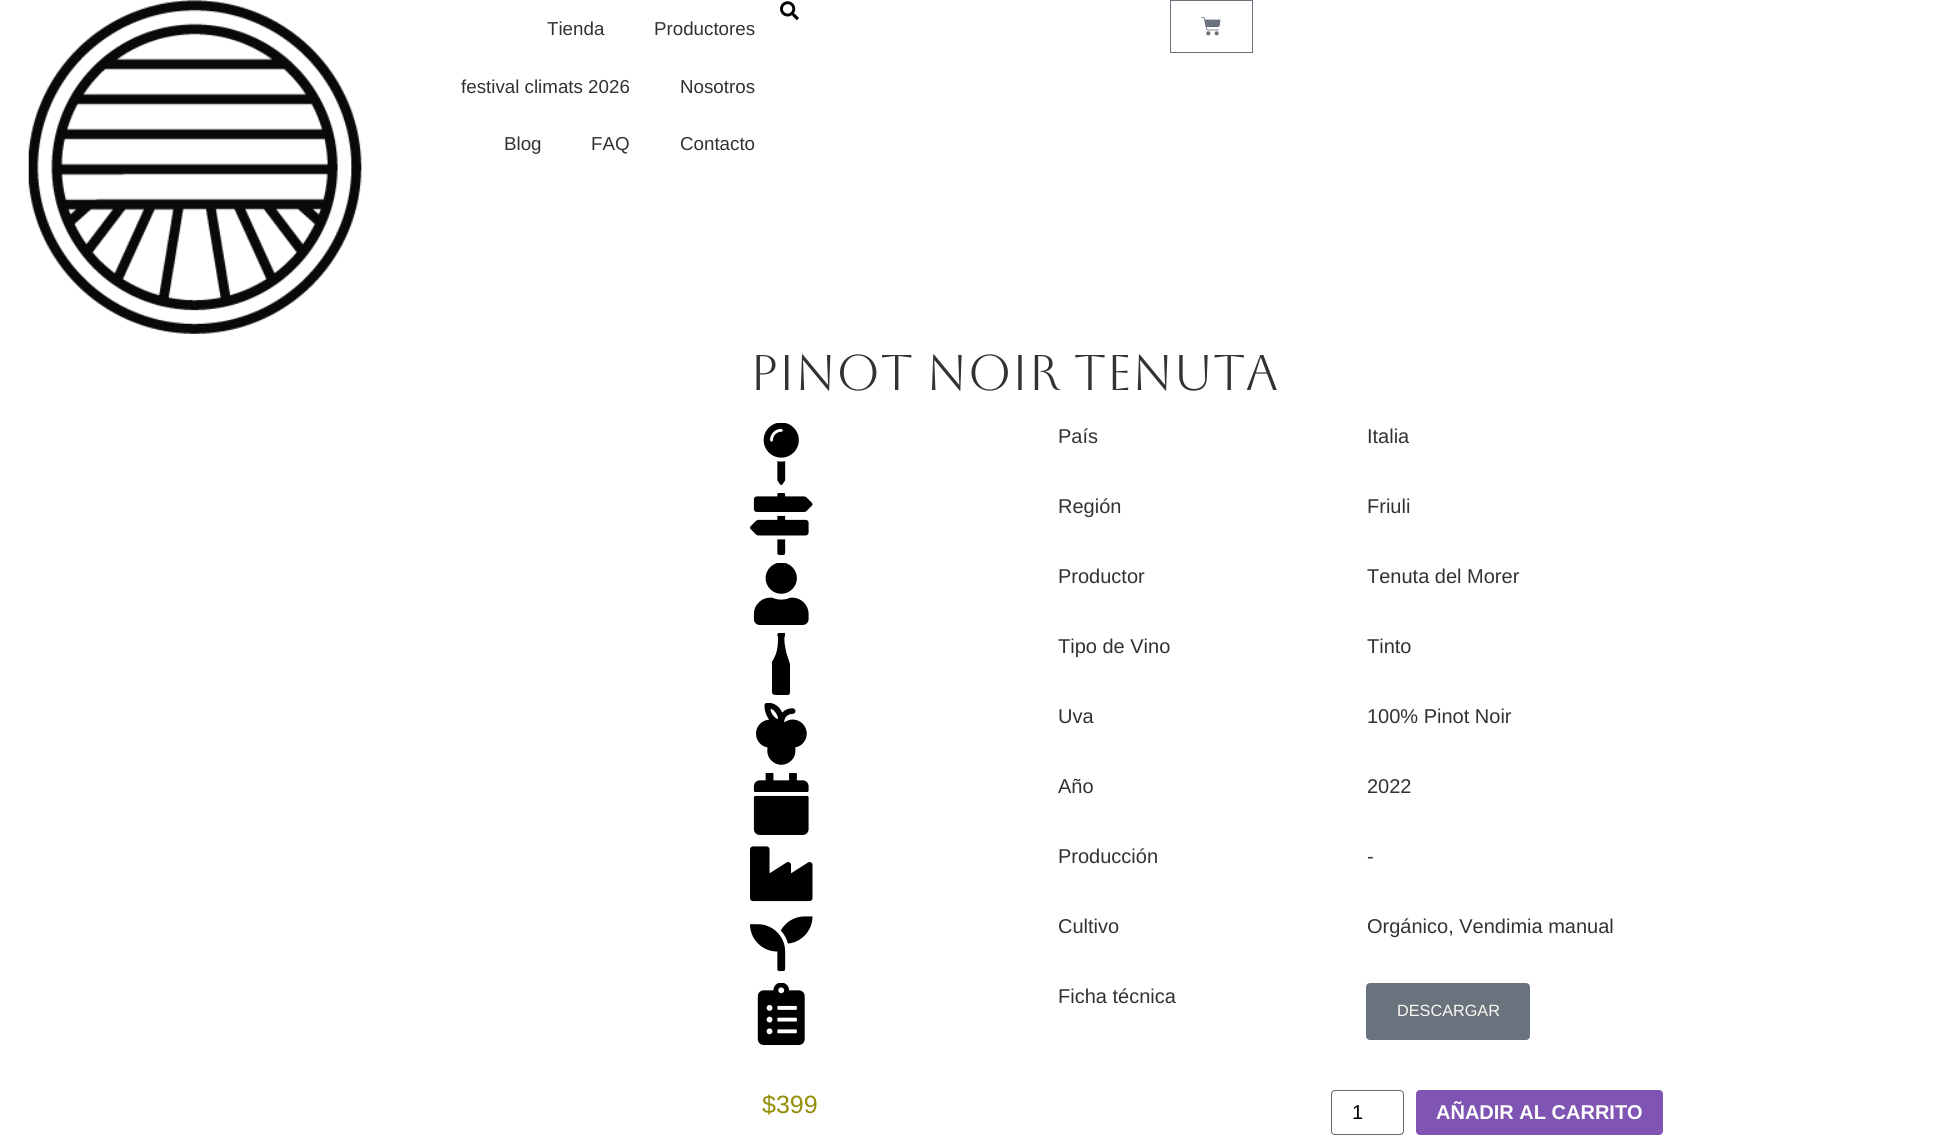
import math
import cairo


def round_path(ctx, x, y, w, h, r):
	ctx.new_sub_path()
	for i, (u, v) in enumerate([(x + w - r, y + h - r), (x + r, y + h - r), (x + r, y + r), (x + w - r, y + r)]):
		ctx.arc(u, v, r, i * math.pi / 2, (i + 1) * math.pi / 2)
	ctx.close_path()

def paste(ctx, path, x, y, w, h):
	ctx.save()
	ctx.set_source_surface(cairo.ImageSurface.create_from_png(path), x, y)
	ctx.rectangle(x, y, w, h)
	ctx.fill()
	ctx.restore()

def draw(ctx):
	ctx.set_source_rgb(1, 1, 1)
	ctx.paint()
	paste(ctx, 'media/1.png', 28, 0, 334, 334)
	paste(ctx, 'media/2.png', 780, 1, 19, 19)
	ctx.rectangle(1170.5, 0.5, 82, 52)
	ctx.set_source_rgb(0.412, 0.447, 0.49)
	ctx.set_line_width(1)
	ctx.stroke()
	paste(ctx, 'media/3.png', 1201, 17, 20, 19)
	ctx.select_font_face('Liberation Sans')
	ctx.set_font_size(18.75)
	ctx.set_source_rgb(0.196, 0.196, 0.196)
	for x, y, s in [
		(547, 35, 'Tienda'),
		(654, 35, 'Productores'),
		(461, 93, 'festival climats 2026'),
		(680, 93, 'Nosotros'),
		(504, 150, 'Blog'),
		(591, 150, 'FAQ'),
		(680, 150, 'Contacto'),
	]:
		ctx.move_to(x, y)
		ctx.show_text(s)
	ctx.select_font_face('Aboreto')
	ctx.set_font_size(50)
	ctx.move_to(750, 390)
	ctx.show_text('Pinot Noir Tenuta')
	paste(ctx, 'media/4.png', 763, 423, 36, 62)
	ctx.select_font_face('Liberation Sans')
	ctx.set_font_size(20)
	ctx.move_to(1058, 443)
	ctx.show_text('País')
	ctx.move_to(1367, 443)
	ctx.show_text('Italia')
	paste(ctx, 'media/5.png', 750, 493, 63, 62)
	ctx.move_to(1058, 513)
	ctx.show_text('Región')
	ctx.move_to(1367, 513)
	ctx.show_text('Friuli')
	paste(ctx, 'media/6.png', 753, 563, 56, 62)
	ctx.move_to(1058, 583)
	ctx.show_text('Productor')
	ctx.move_to(1367, 583)
	ctx.show_text('Tenuta del Morer')
	ctx.save()
	ctx.rectangle(750, 633, 63, 62)
	ctx.clip()
	ctx.set_source_rgb(0, 0, 0)
	ctx.new_path()
	ctx.move_to(778, 636)
	ctx.line_to(777, 636)
	ctx.line_to(778, 633)
	ctx.line_to(785, 633)
	ctx.line_to(785, 636)
	ctx.curve_to(783, 638, 786, 652, 787, 655)
	ctx.line_to(790, 664)
	ctx.line_to(790, 682)
	ctx.curve_to(790, 698, 792, 695, 777, 695)
	ctx.curve_to(771, 695, 772, 693, 772, 687)
	ctx.line_to(772, 662)
	ctx.curve_to(774, 658, 776, 655, 777, 650)
	ctx.curve_to(778, 645, 778, 640, 778, 636)
	ctx.close_path()
	ctx.fill()
	ctx.restore()
	ctx.move_to(1058, 653)
	ctx.show_text('Tipo de Vino')
	ctx.move_to(1367, 653)
	ctx.show_text('Tinto')
	paste(ctx, 'media/7.png', 756, 703, 51, 62)
	ctx.move_to(1058, 723)
	ctx.show_text('Uva')
	ctx.move_to(1367, 723)
	ctx.show_text('100% Pinot Noir')
	paste(ctx, 'media/8.png', 753, 773, 56, 62)
	ctx.move_to(1058, 793)
	ctx.show_text('Año')
	ctx.move_to(1367, 793)
	ctx.show_text('2022')
	paste(ctx, 'media/9.png', 750, 846, 63, 56)
	ctx.move_to(1058, 863)
	ctx.show_text('Producción')
	ctx.move_to(1367, 863)
	ctx.show_text('-')
	paste(ctx, 'media/10.png', 750, 916, 63, 56)
	ctx.move_to(1058, 933)
	ctx.show_text('Cultivo')
	ctx.move_to(1367, 933)
	ctx.show_text('Orgánico, Vendimia manual')
	paste(ctx, 'media/11.png', 757, 983, 48, 62)
	ctx.move_to(1058, 1003)
	ctx.show_text('Ficha técnica')
	ctx.set_source_rgb(0.412, 0.447, 0.49)
	round_path(ctx, 1366, 983, 164, 57, 4)
	ctx.fill()
	ctx.set_font_size(16.25)
	ctx.set_source_rgb(0.98, 0.969, 0.949)
	ctx.move_to(1397, 1016)
	ctx.show_text('DESCARGAR')
	ctx.set_font_size(25)
	ctx.set_source_rgb(0.584, 0.557, 0.035)
	ctx.move_to(762, 1113)
	ctx.show_text('$399')
	round_path(ctx, 1331.5, 1090.5, 72, 44, 3.5)
	ctx.set_source_rgb(0.4, 0.4, 0.4)
	ctx.stroke()
	ctx.set_font_size(20)
	ctx.set_source_rgb(0, 0, 0)
	ctx.move_to(1352, 1119)
	ctx.show_text('1')
	ctx.set_source_rgb(0.498, 0.329, 0.702)
	round_path(ctx, 1416, 1090, 247, 45, 4)
	ctx.fill()
	ctx.select_font_face('Liberation Sans', cairo.FONT_SLANT_NORMAL, cairo.FONT_WEIGHT_BOLD)
	ctx.set_source_rgb(1, 1, 1)
	ctx.move_to(1436, 1119)
	ctx.show_text('AÑADIR AL CARRITO')


surface = cairo.ImageSurface(cairo.FORMAT_RGB24, 1950, 1148)
ctx = cairo.Context(surface)
options = cairo.FontOptions()
options.set_hint_metrics(cairo.HINT_METRICS_OFF)
options.set_hint_style(cairo.HINT_STYLE_NONE)
ctx.set_font_options(options)
ctx.set_miter_limit(4)
draw(ctx)
surface.write_to_png('image.png')
